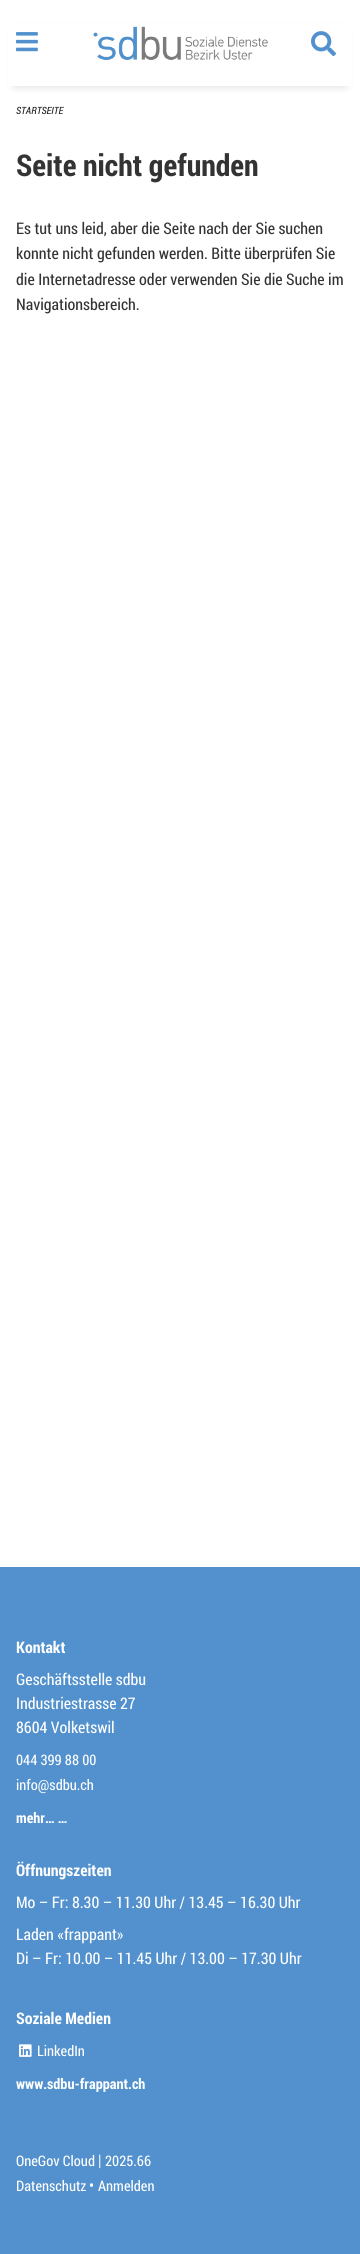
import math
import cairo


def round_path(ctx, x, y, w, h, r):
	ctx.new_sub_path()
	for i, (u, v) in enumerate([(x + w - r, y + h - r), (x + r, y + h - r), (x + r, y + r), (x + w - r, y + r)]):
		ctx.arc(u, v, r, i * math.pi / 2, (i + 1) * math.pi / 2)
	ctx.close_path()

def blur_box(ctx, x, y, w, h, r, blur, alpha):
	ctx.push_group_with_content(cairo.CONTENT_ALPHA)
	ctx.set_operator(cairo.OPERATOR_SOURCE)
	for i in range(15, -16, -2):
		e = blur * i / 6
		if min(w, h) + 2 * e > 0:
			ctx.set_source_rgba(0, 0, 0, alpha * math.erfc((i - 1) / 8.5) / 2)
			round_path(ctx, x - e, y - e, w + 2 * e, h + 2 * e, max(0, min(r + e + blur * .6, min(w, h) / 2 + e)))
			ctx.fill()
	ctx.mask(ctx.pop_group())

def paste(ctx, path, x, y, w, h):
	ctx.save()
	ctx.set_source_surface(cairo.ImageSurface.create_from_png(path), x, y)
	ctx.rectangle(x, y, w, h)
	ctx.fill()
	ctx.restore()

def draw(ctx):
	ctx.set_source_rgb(1, 1, 1)
	ctx.paint()
	ctx.set_source_rgb(0, 0, 0)
	blur_box(ctx, 15, 30, 330, 56, 0, 5, 0.15)
	ctx.set_source_rgb(1, 1, 1)
	ctx.rectangle(8, 23, 344, 63)
	ctx.fill()
	paste(ctx, 'media/1.png', 16, 32, 22, 20)
	paste(ctx, 'media/2.png', 93, 26, 175, 35)
	paste(ctx, 'media/3.png', 311, 31, 25, 26)
	ctx.select_font_face('Roboto Condensed', cairo.FONT_SLANT_ITALIC)
	ctx.set_font_size(10)
	ctx.set_source_rgb(0.133, 0.133, 0.133)
	ctx.move_to(16, 114)
	ctx.show_text('STARTSEITE')
	ctx.select_font_face('Roboto Condensed', cairo.FONT_SLANT_NORMAL, cairo.FONT_WEIGHT_BOLD)
	ctx.set_font_size(30)
	ctx.set_source_rgb(0.2, 0.2, 0.2)
	ctx.move_to(16, 176)
	ctx.show_text('Seite nicht gefunden')
	ctx.select_font_face('Roboto Condensed')
	ctx.set_font_size(16)
	for x, y, s in [
		(16, 234, 'Es tut uns leid, aber die Seite nach der Sie suchen'),
		(16, 259, 'konnte nicht gefunden werden. Bitte überprüfen Sie'),
		(16, 285, 'die Internetadresse oder verwenden Sie die Suche im'),
		(16, 310, 'Navigationsbereich.'),
	]:
		ctx.move_to(x, y)
		ctx.show_text(s)
	ctx.set_source_rgb(0.322, 0.569, 0.804)
	ctx.rectangle(0, 1567, 360, 687)
	ctx.fill()
	ctx.select_font_face('Roboto Condensed', cairo.FONT_SLANT_NORMAL, cairo.FONT_WEIGHT_BOLD)
	ctx.set_source_rgb(1, 1, 1)
	ctx.move_to(16, 1653)
	ctx.show_text('Kontakt')
	ctx.select_font_face('Roboto Condensed')
	for x, y, s in [
		(16, 1685, 'Geschäftsstelle sdbu'),
		(16, 1709, 'Industriestrasse 27'),
		(16, 1733, '8604 Volketswil'),
	]:
		ctx.move_to(x, y)
		ctx.show_text(s)
	ctx.set_font_size(14.5)
	ctx.move_to(16, 1765)
	ctx.show_text('044 399 88 00')
	ctx.move_to(16, 1790)
	ctx.show_text('info@sdbu.ch')
	ctx.select_font_face('Roboto Condensed', cairo.FONT_SLANT_NORMAL, cairo.FONT_WEIGHT_BOLD)
	ctx.move_to(16, 1823)
	ctx.show_text('mehr… …')
	ctx.set_font_size(16)
	ctx.move_to(16, 1876)
	ctx.show_text('Öffnungszeiten')
	ctx.select_font_face('Roboto Condensed')
	for x, y, s in [
		(16, 1908, 'Mo – Fr: 8.30 – 11.30 Uhr / 13.45 – 16.30 Uhr'),
		(16, 1940, 'Laden «frappant»'),
		(16, 1964, 'Di – Fr: 10.00 – 11.45 Uhr / 13.00 – 17.30 Uhr'),
	]:
		ctx.move_to(x, y)
		ctx.show_text(s)
	ctx.select_font_face('Roboto Condensed', cairo.FONT_SLANT_NORMAL, cairo.FONT_WEIGHT_BOLD)
	ctx.move_to(16, 2024)
	ctx.show_text('Soziale Medien')
	paste(ctx, 'media/4.png', 19, 2044, 13, 13)
	ctx.select_font_face('Roboto Condensed')
	ctx.set_font_size(14.5)
	ctx.move_to(37, 2056)
	ctx.show_text('LinkedIn')
	ctx.select_font_face('Roboto Condensed', cairo.FONT_SLANT_NORMAL, cairo.FONT_WEIGHT_BOLD)
	ctx.move_to(16, 2089)
	ctx.show_text('www.sdbu-frappant.ch')
	ctx.select_font_face('Roboto Condensed')
	ctx.move_to(16, 2166)
	ctx.show_text('OneGov Cloud')
	ctx.set_font_size(16)
	ctx.move_to(98, 2166)
	ctx.show_text('|')
	ctx.set_font_size(14.5)
	ctx.move_to(105, 2166)
	ctx.show_text('2025.66')
	ctx.move_to(16, 2191)
	ctx.show_text('Datenschutz')
	ctx.set_font_size(16)
	ctx.move_to(89, 2191)
	ctx.show_text('•')
	ctx.set_font_size(14.5)
	ctx.move_to(98, 2191)
	ctx.show_text('Anmelden')


surface = cairo.ImageSurface(cairo.FORMAT_RGB24, 360, 2254)
ctx = cairo.Context(surface)
options = cairo.FontOptions()
options.set_hint_metrics(cairo.HINT_METRICS_OFF)
options.set_hint_style(cairo.HINT_STYLE_NONE)
ctx.set_font_options(options)
ctx.set_miter_limit(4)
draw(ctx)
surface.write_to_png('image.png')
